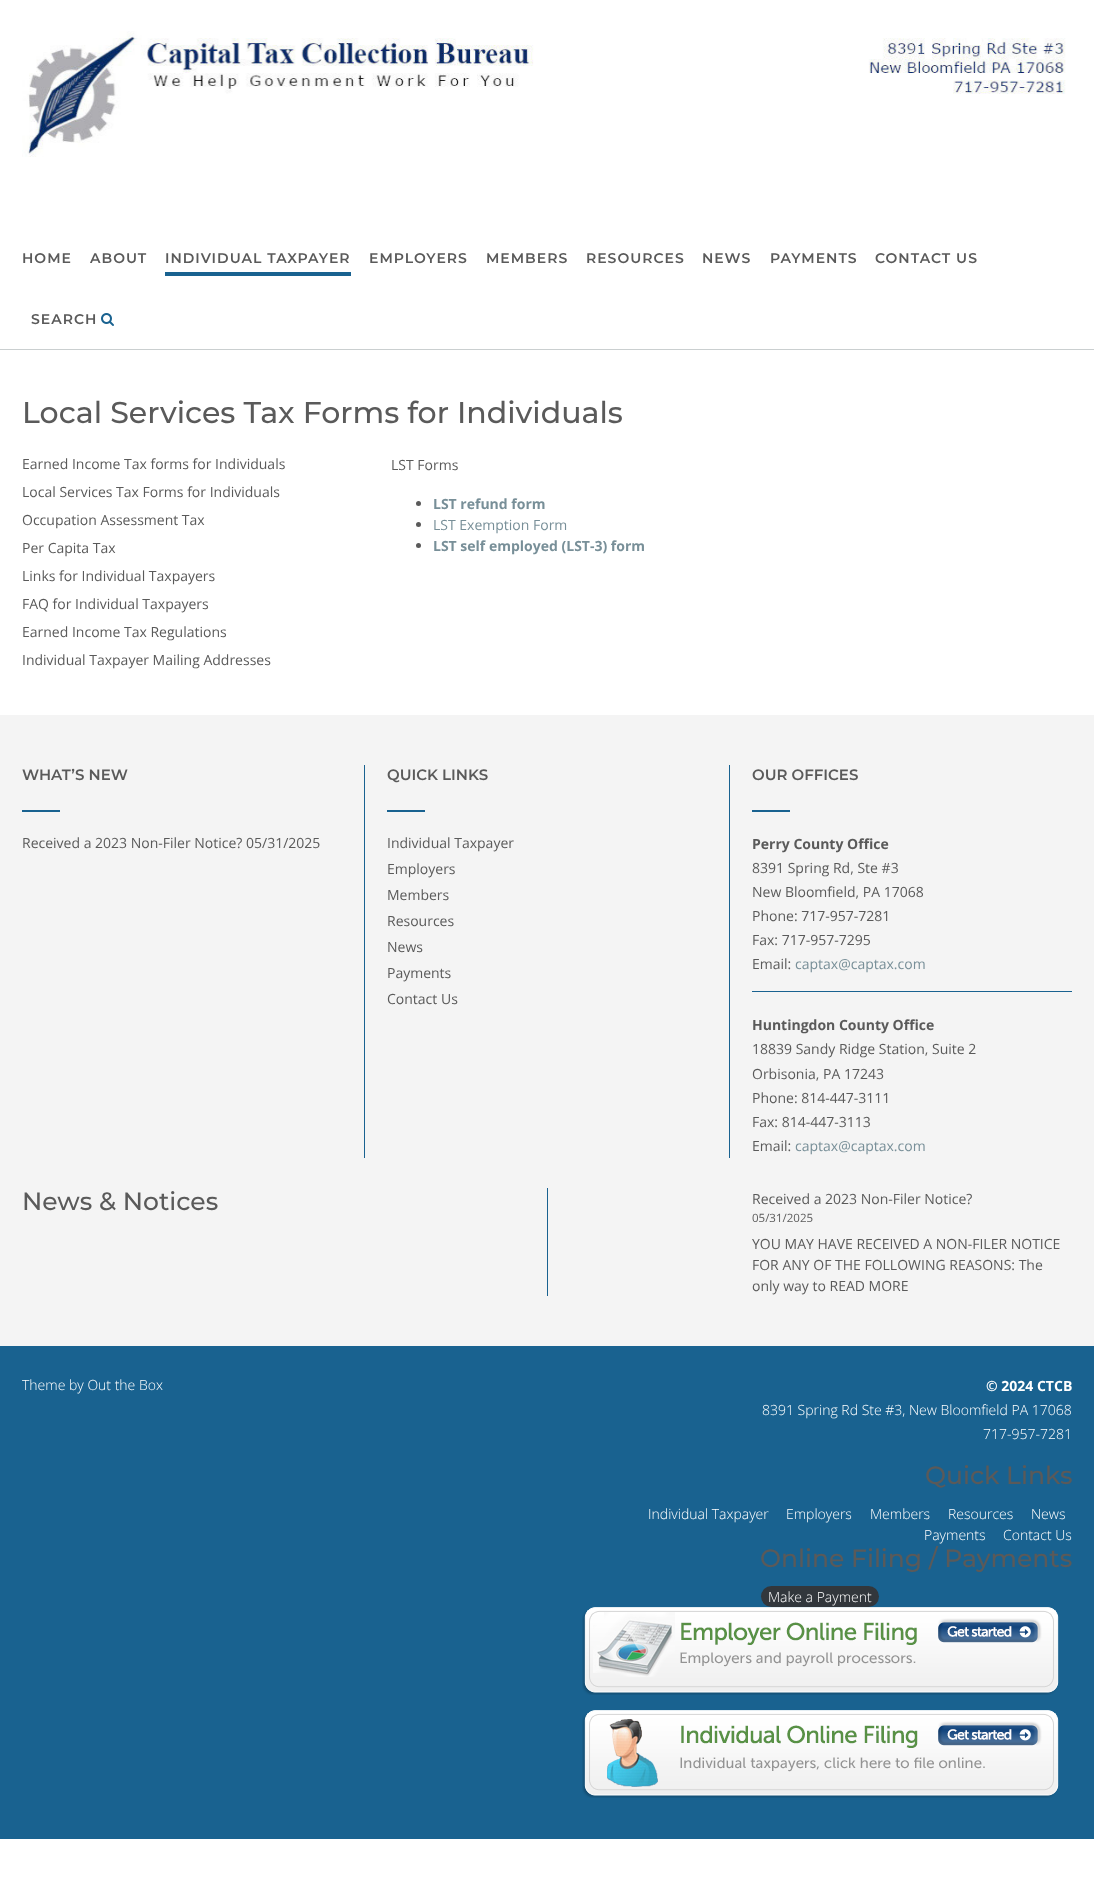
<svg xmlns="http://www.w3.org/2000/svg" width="1094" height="1878">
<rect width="100%" height="100%" fill="#fff"/>
<rect y="349" width="1094" height="1" fill="#cacfd0"/>
<image x="22" y="31" width="1044" height="126" href="media/1.png"/>
<text x="22" y="263" style="font-family:Montserrat;font-size:14px;font-weight:600;letter-spacing:1px;fill:#5a5a5a">HOME</text>
<text x="90" y="263" style="font-family:Montserrat;font-size:14px;font-weight:600;letter-spacing:1px;fill:#5a5a5a">ABOUT</text>
<text x="165" y="263" style="font-family:Montserrat;font-size:14px;font-weight:600;letter-spacing:1px;fill:#5a5a5a">INDIVIDUAL TAXPAYER</text>
<rect x="165" y="272" width="186" height="4" fill="#196290"/>
<text x="369" y="263" style="font-family:Montserrat;font-size:14px;font-weight:600;letter-spacing:1px;fill:#5a5a5a">EMPLOYERS</text>
<text x="486" y="263" style="font-family:Montserrat;font-size:14px;font-weight:600;letter-spacing:1px;fill:#5a5a5a">MEMBERS</text>
<text x="586" y="263" style="font-family:Montserrat;font-size:14px;font-weight:600;letter-spacing:1px;fill:#5a5a5a">RESOURCES</text>
<text x="702" y="263" style="font-family:Montserrat;font-size:14px;font-weight:600;letter-spacing:1px;fill:#5a5a5a">NEWS</text>
<text x="770" y="263" style="font-family:Montserrat;font-size:14px;font-weight:600;letter-spacing:1px;fill:#5a5a5a">PAYMENTS</text>
<text x="875" y="263" style="font-family:Montserrat;font-size:14px;font-weight:600;letter-spacing:1px;fill:#5a5a5a">CONTACT US</text>
<text x="31" y="324" style="font-family:Montserrat;font-size:14px;font-weight:600;letter-spacing:1px;fill:#5a5a5a">SEARCH</text>
<image x="101" y="313" width="13" height="13" href="media/2.png"/>
<text x="22" y="423" style="font-family:Montserrat;font-size:30px;font-weight:500;fill:#5a5a5a">Local Services Tax Forms for Individuals</text>
<text x="22" y="469" style="font-family:Open Sans;font-size:14px;fill:#5a5a5a">Earned Income Tax forms for Individuals</text>
<text x="22" y="497" style="font-family:Open Sans;font-size:14px;fill:#5a5a5a">Local Services Tax Forms for Individuals</text>
<text x="22" y="525" style="font-family:Open Sans;font-size:14px;fill:#5a5a5a">Occupation Assessment Tax</text>
<text x="22" y="553" style="font-family:Open Sans;font-size:14px;fill:#5a5a5a">Per Capita Tax</text>
<text x="22" y="581" style="font-family:Open Sans;font-size:14px;fill:#5a5a5a">Links for Individual Taxpayers</text>
<text x="22" y="609" style="font-family:Open Sans;font-size:14px;fill:#5a5a5a">FAQ for Individual Taxpayers</text>
<text x="22" y="637" style="font-family:Open Sans;font-size:14px;fill:#5a5a5a">Earned Income Tax Regulations</text>
<text x="22" y="665" style="font-family:Open Sans;font-size:14px;fill:#5a5a5a">Individual Taxpayer Mailing Addresses</text>
<text x="391" y="470" style="font-family:Open Sans;font-size:14px;fill:#5a5a5a">LST Forms</text>
<circle cx="418.5" cy="503.5" r="2.5" fill="#5a5a5a"/>
<text x="433" y="509" style="font-family:Open Sans;font-size:14px;font-weight:bold;fill:#788f98">LST refund form</text>
<circle cx="418.5" cy="524.5" r="2.5" fill="#5a5a5a"/>
<text x="433" y="530" style="font-family:Open Sans;font-size:14px;fill:#788f98">LST Exemption Form</text>
<circle cx="418.5" cy="545.5" r="2.5" fill="#5a5a5a"/>
<text x="433" y="551" style="font-family:Open Sans;font-size:14px;font-weight:bold;fill:#788f98">LST self employed (LST-3) form</text>
<rect y="715" width="1094" height="631" fill="#f4f4f4"/>
<text x="22" y="780" style="font-family:Montserrat;font-size:15px;font-weight:600;fill:#5a5a5a">WHAT’S NEW</text>
<rect x="22" y="810" width="38" height="2" fill="#196290"/>
<text x="22" y="848" style="font-family:Open Sans;font-size:14px;fill:#5a5a5a">Received a 2023 Non-Filer Notice? 05/31/2025</text>
<rect x="364" y="765" width="1" height="393" fill="#196290"/>
<text x="387" y="780" style="font-family:Montserrat;font-size:15px;font-weight:600;fill:#5a5a5a">QUICK LINKS</text>
<rect x="387" y="810" width="38" height="2" fill="#196290"/>
<text x="387" y="848" style="font-family:Open Sans;font-size:14px;fill:#5a5a5a">Individual Taxpayer</text>
<text x="387" y="874" style="font-family:Open Sans;font-size:14px;fill:#5a5a5a">Employers</text>
<text x="387" y="900" style="font-family:Open Sans;font-size:14px;fill:#5a5a5a">Members</text>
<text x="387" y="926" style="font-family:Open Sans;font-size:14px;fill:#5a5a5a">Resources</text>
<text x="387" y="952" style="font-family:Open Sans;font-size:14px;fill:#5a5a5a">News</text>
<text x="387" y="978" style="font-family:Open Sans;font-size:14px;fill:#5a5a5a">Payments</text>
<text x="387" y="1004" style="font-family:Open Sans;font-size:14px;fill:#5a5a5a">Contact Us</text>
<rect x="729" y="765" width="1" height="393" fill="#196290"/>
<text x="752" y="780" style="font-family:Montserrat;font-size:15px;font-weight:600;fill:#5a5a5a">OUR OFFICES</text>
<rect x="752" y="810" width="38" height="2" fill="#196290"/>
<text x="752" y="849" style="font-family:Open Sans;font-size:14px;font-weight:bold;fill:#5a5a5a">Perry County Office</text>
<text x="752" y="873" style="font-family:Open Sans;font-size:14px;fill:#5a5a5a">8391 Spring Rd, Ste #3</text>
<text x="752" y="897" style="font-family:Open Sans;font-size:14px;fill:#5a5a5a">New Bloomfield, PA 17068</text>
<text x="752" y="921" style="font-family:Open Sans;font-size:14px;fill:#5a5a5a">Phone: 717-957-7281</text>
<text x="752" y="945" style="font-family:Open Sans;font-size:14px;fill:#5a5a5a">Fax: 717-957-7295</text>
<text x="752" y="969" style="font-family:Open Sans;font-size:14px;fill:#5a5a5a">Email:</text>
<text x="795" y="969" style="font-family:Open Sans;font-size:14px;fill:#788f98">captax@captax.com</text>
<rect x="752" y="991" width="320" height="1" fill="#196290"/>
<text x="752" y="1030" style="font-family:Open Sans;font-size:14px;font-weight:bold;fill:#5a5a5a">Huntingdon County Office</text>
<text x="752" y="1054" style="font-family:Open Sans;font-size:14px;fill:#5a5a5a">18839 Sandy Ridge Station, Suite 2</text>
<text x="752" y="1079" style="font-family:Open Sans;font-size:14px;fill:#5a5a5a">Orbisonia, PA 17243</text>
<text x="752" y="1103" style="font-family:Open Sans;font-size:14px;fill:#5a5a5a">Phone: 814-447-3111</text>
<text x="752" y="1127" style="font-family:Open Sans;font-size:14px;fill:#5a5a5a">Fax: 814-447-3113</text>
<text x="752" y="1151" style="font-family:Open Sans;font-size:14px;fill:#5a5a5a">Email:</text>
<text x="795" y="1151" style="font-family:Open Sans;font-size:14px;fill:#788f98">captax@captax.com</text>
<text x="22" y="1210" style="font-family:Montserrat;font-size:25px;font-weight:500;fill:#5a5a5a">News &amp; Notices</text>
<rect x="547" y="1188" width="1" height="108" fill="#196290"/>
<text x="752" y="1204" style="font-family:Open Sans;font-size:14px;fill:#5a5a5a">Received a 2023 Non-Filer Notice?</text>
<text x="752" y="1222" style="font-family:Open Sans;font-size:11.5px;fill:#5a5a5a">05/31/2025</text>
<text x="752" y="1249" style="font-family:Open Sans;font-size:14px;fill:#5a5a5a">YOU MAY HAVE RECEIVED A NON-FILER NOTICE</text>
<text x="752" y="1270" style="font-family:Open Sans;font-size:14px;fill:#5a5a5a">FOR ANY OF THE FOLLOWING REASONS: The</text>
<text x="752" y="1291" style="font-family:Open Sans;font-size:14px;fill:#5a5a5a">only way to READ MORE</text>
<rect y="1346" width="1094" height="493" fill="#196290"/>
<text x="22" y="1390" style="font-family:Open Sans;font-size:14px;font-weight:300;fill:#fff">Theme by Out the Box</text>
<text x="986" y="1391" style="font-family:Open Sans;font-size:14px;font-weight:bold;fill:#fff">© 2024 CTCB</text>
<text x="762" y="1415" style="font-family:Open Sans;font-size:14px;font-weight:300;fill:#fff">8391 Spring Rd Ste #3, New Bloomfield PA 17068</text>
<text x="983" y="1439" style="font-family:Open Sans;font-size:14px;font-weight:300;fill:#fff">717-957-7281</text>
<text x="925" y="1484" style="font-family:Montserrat;font-size:25px;font-weight:500;fill:#5a5a5a">Quick Links</text>
<text x="648" y="1519" style="font-family:Open Sans;font-size:14px;font-weight:300;fill:#fff">Individual Taxpayer</text>
<text x="786" y="1519" style="font-family:Open Sans;font-size:14px;font-weight:300;fill:#fff">Employers</text>
<text x="870" y="1519" style="font-family:Open Sans;font-size:14px;font-weight:300;fill:#fff">Members</text>
<text x="948" y="1519" style="font-family:Open Sans;font-size:14px;font-weight:300;fill:#fff">Resources</text>
<text x="1031" y="1519" style="font-family:Open Sans;font-size:14px;font-weight:300;fill:#fff">News</text>
<text x="924" y="1540" style="font-family:Open Sans;font-size:14px;font-weight:300;fill:#fff">Payments</text>
<text x="1003" y="1540" style="font-family:Open Sans;font-size:14px;font-weight:300;fill:#fff">Contact Us</text>
<text x="760" y="1567" style="font-family:Montserrat;font-size:25px;font-weight:500;fill:#5a5a5a">Online Filing / Payments</text>
<rect x="761" y="1586" width="118" height="21" rx="10.5" fill="#32373c"/>
<text x="768" y="1602" style="font-family:Open Sans;font-size:14px;font-weight:300;fill:#fff">Make a Payment</text>
<image x="582" y="1607" width="477" height="88" href="media/3.png"/>
<image x="582" y="1710" width="477" height="88" href="media/4.png"/>
</svg>
